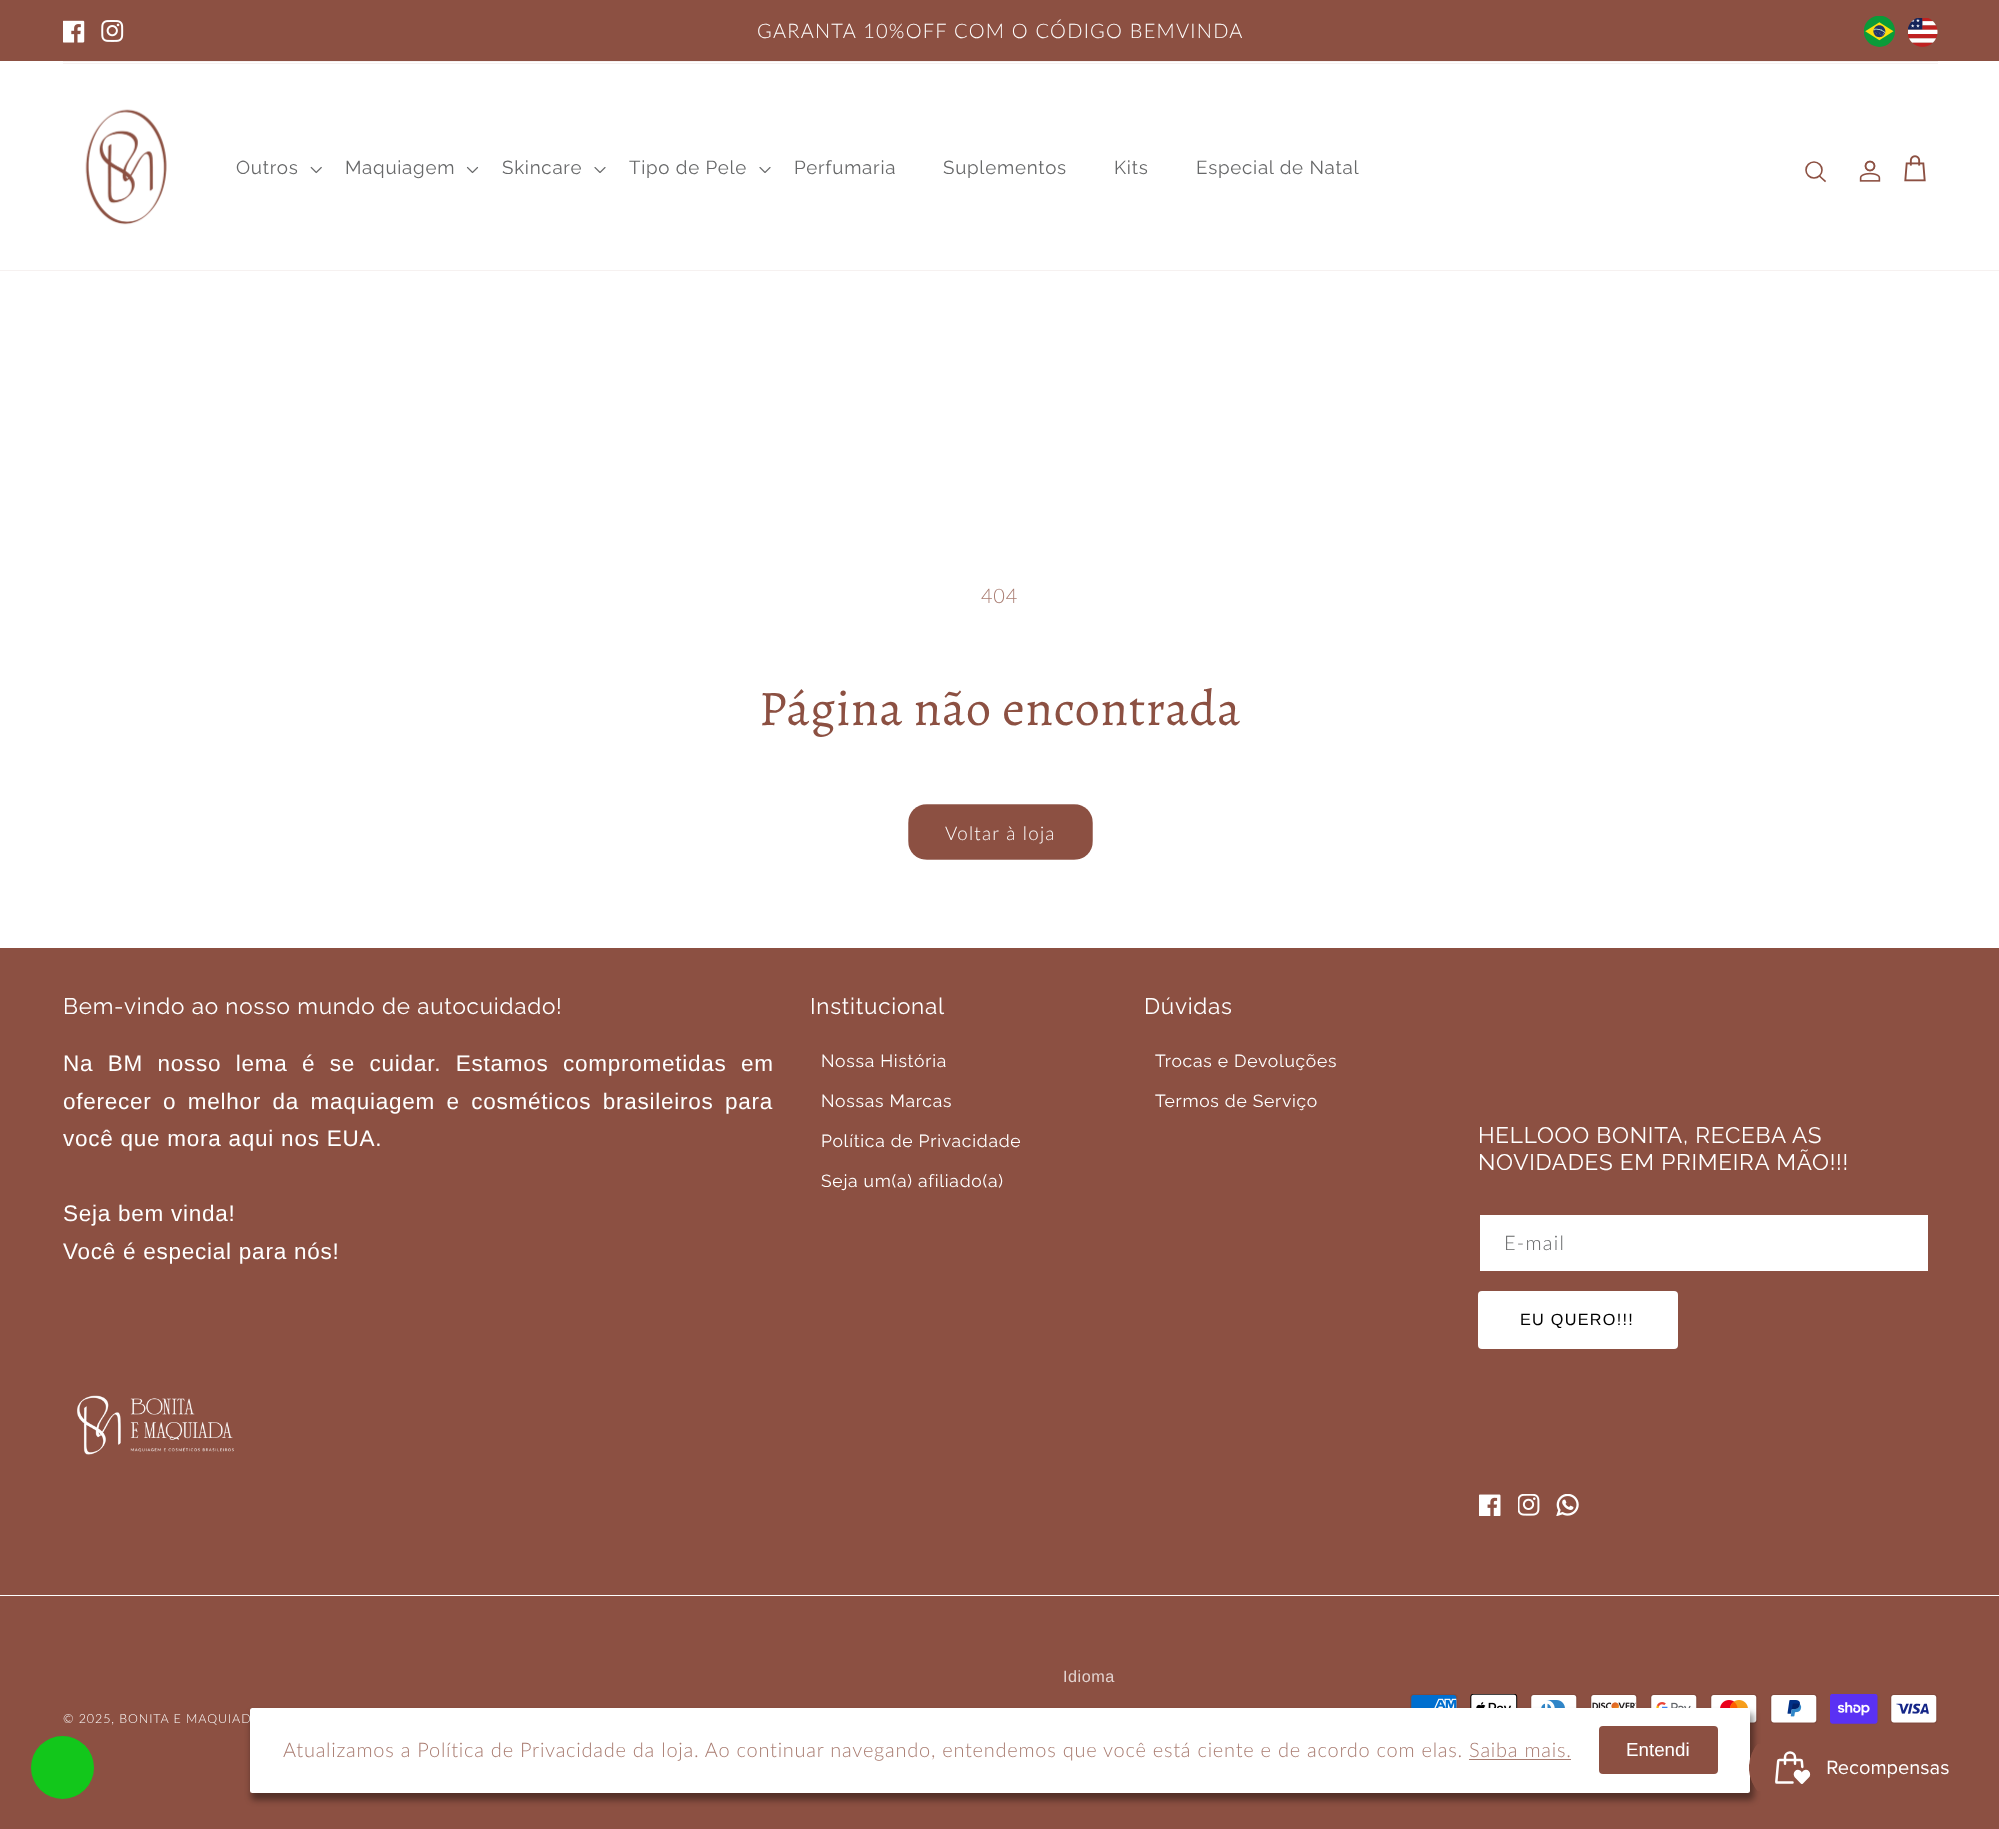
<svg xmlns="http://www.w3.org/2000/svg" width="1999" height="1829">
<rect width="100%" height="100%" fill="#fff"/>
<rect width="1999" height="61" fill="#8c5042"/>
<image x="63" y="20" width="22" height="23" href="media/1.png"/>
<image x="101" y="20" width="23" height="22" href="media/2.png"/>
<rect x="63" y="61" width="1875" height="1" fill="#f6f1f0"/>
<text x="757" y="38" style="font-family:Lato;font-size:20px;font-weight:300;letter-spacing:1.25px;fill:#fff">GARANTA 10%OFF COM O CÓDIGO BEMVINDA</text>
<image x="1864" y="16" width="31" height="31" href="media/3.png"/>
<image x="1908" y="18" width="30" height="29" href="media/4.png"/>
<rect x="63" y="63" width="1875" height="1" fill="#f6f1f0"/>
<rect y="270" width="1999" height="1" fill="#f6f1f0"/>
<image x="85" y="109" width="82" height="116" href="media/5.png"/>
<text x="236" y="174" style="font-family:Raleway;font-size:18.75px;font-weight:100;letter-spacing:0.75px;fill:#676869">Outros</text>
<image x="310" y="166" width="12" height="8" href="media/6.png"/>
<text x="345" y="174" style="font-family:Raleway;font-size:18.75px;font-weight:100;letter-spacing:0.75px;fill:#676869">Maquiagem</text>
<image x="466" y="166" width="13" height="8" href="media/7.png"/>
<text x="502" y="174" style="font-family:Raleway;font-size:18.75px;font-weight:100;letter-spacing:0.75px;fill:#676869">Skincare</text>
<image x="594" y="167" width="12" height="6" href="media/8.png"/>
<text x="629" y="174" style="font-family:Raleway;font-size:18.75px;font-weight:100;letter-spacing:0.75px;fill:#676869">Tipo de Pele</text>
<image x="759" y="167" width="12" height="6" href="media/8.png"/>
<text x="794" y="174" style="font-family:Raleway;font-size:18.75px;font-weight:100;letter-spacing:0.75px;fill:#676869">Perfumaria</text>
<text x="943" y="174" style="font-family:Raleway;font-size:18.75px;font-weight:100;letter-spacing:0.75px;fill:#676869">Suplementos</text>
<text x="1114" y="174" style="font-family:Raleway;font-size:18.75px;font-weight:100;letter-spacing:0.75px;fill:#676869">Kits</text>
<text x="1196" y="174" style="font-family:Raleway;font-size:18.75px;font-weight:100;letter-spacing:0.75px;fill:#676869">Especial de Natal</text>
<circle cx="1814" cy="170" r="8" fill="none" stroke="#8c5042" stroke-width="1.6"/>
<path d="M1820 176.5l5 4.5" fill="none" stroke="#8c5042" stroke-width="1.6" stroke-linecap="square"/>
<image x="1859" y="160" width="22" height="22" href="media/9.png"/>
<image x="1904" y="155" width="22" height="27" href="media/10.png"/>
<text x="981" y="603" style="font-family:Lato;font-size:20px;font-weight:300;letter-spacing:0.75px;fill:#a97c71">404</text>
<text x="759" y="725" style="font-family:Alegreya;font-size:50px;letter-spacing:0.75px;fill:#8c5042">Página não encontrada</text>
<rect x="908" y="804" width="185" height="56" rx="19" fill="#8c5042"/>
<rect x="908.2" y="804.2" width="184.6" height="55.6" rx="14.8" fill="none" stroke="#fff" stroke-width="0.4"/>
<text x="945" y="840" style="font-family:Lato;font-size:18.75px;font-weight:300;letter-spacing:1.25px;fill:#fff">Voltar à loja</text>
<rect y="948" width="1999" height="881" fill="#8c5042"/>
<text x="63" y="1014" style="font-family:Raleway;font-size:22.5px;font-weight:100;letter-spacing:0.75px;fill:#fff">Bem-vindo ao nosso mundo de autocuidado!</text>
<text x="63" y="1071" word-spacing="7.5" style="font-family:Liberation Sans;font-size:22.5px;letter-spacing:0.75px;fill:#fff">Na BM nosso lema é se cuidar. Estamos comprometidas em</text>
<text x="63" y="1109" word-spacing="4.5" style="font-family:Liberation Sans;font-size:22.5px;letter-spacing:0.75px;fill:#fff">oferecer o melhor da maquiagem e cosméticos brasileiros para</text>
<text x="63" y="1146" style="font-family:Liberation Sans;font-size:22.5px;letter-spacing:0.75px;fill:#fff">você que mora aqui nos EUA.</text>
<text x="63" y="1221" style="font-family:Liberation Sans;font-size:22.5px;letter-spacing:0.75px;fill:#fff">Seja bem vinda!</text>
<text x="63" y="1259" style="font-family:Liberation Sans;font-size:22.5px;letter-spacing:0.75px;fill:#fff">Você é especial para nós!</text>
<image x="77" y="1395" width="157" height="60" href="media/11.png"/>
<text x="810" y="1014" style="font-family:Raleway;font-size:22.5px;font-weight:100;letter-spacing:0.75px;fill:#fff">Institucional</text>
<text x="821" y="1067" style="font-family:Raleway;font-size:17.5px;font-weight:100;letter-spacing:0.75px;fill:#fff">Nossa História</text>
<text x="821" y="1107" style="font-family:Raleway;font-size:17.5px;font-weight:100;letter-spacing:0.75px;fill:#fff">Nossas Marcas</text>
<text x="821" y="1147" style="font-family:Raleway;font-size:17.5px;font-weight:100;letter-spacing:0.75px;fill:#fff">Política de Privacidade</text>
<text x="821" y="1187" style="font-family:Raleway;font-size:17.5px;font-weight:100;letter-spacing:0.75px;fill:#fff">Seja um(a) afiliado(a)</text>
<text x="1144" y="1014" style="font-family:Raleway;font-size:22.5px;font-weight:100;letter-spacing:0.75px;fill:#fff">Dúvidas</text>
<text x="1155" y="1067" style="font-family:Raleway;font-size:17.5px;font-weight:100;letter-spacing:0.75px;fill:#fff">Trocas e Devoluções</text>
<text x="1155" y="1107" style="font-family:Raleway;font-size:17.5px;font-weight:100;letter-spacing:0.75px;fill:#fff">Termos de Serviço</text>
<text x="1478" y="1143" style="font-family:Raleway;font-size:22.5px;font-weight:100;letter-spacing:0.75px;fill:#fff">HELLOOO BONITA, RECEBA AS</text>
<text x="1478" y="1170" style="font-family:Raleway;font-size:22.5px;font-weight:100;letter-spacing:0.75px;fill:#fff">NOVIDADES EM PRIMEIRA MÃO!!!</text>
<rect x="1480" y="1215" width="448" height="56" fill="#fff"/>
<text x="1504" y="1250" style="font-family:Lato;font-size:20px;font-weight:300;letter-spacing:1.25px;fill:#676869">E-mail</text>
<rect x="1478" y="1291" width="200" height="58" rx="4" fill="#fff"/>
<text x="1520" y="1325" style="font-family:Liberation Sans;font-size:16.25px;letter-spacing:1.25px;fill:#000">EU QUERO!!!</text>
<image x="1479" y="1494" width="22" height="22" href="media/12.png"/>
<image x="1518" y="1494" width="22" height="22" href="media/13.png"/>
<image x="1556" y="1494" width="23" height="22" href="media/14.png"/>
<rect y="1595" width="1999" height="1" fill="#fff"/>
<text x="1063" y="1682" style="font-family:Liberation Sans;font-size:16.25px;letter-spacing:0.5px;fill:#e2d3d0">Idioma</text>
<image x="1410" y="1694" width="48" height="14" href="media/15.png"/>
<image x="1470" y="1694" width="48" height="14" href="media/16.png"/>
<image x="1530" y="1694" width="48" height="14" href="media/17.png"/>
<image x="1590" y="1694" width="48" height="14" href="media/18.png"/>
<image x="1650" y="1694" width="48" height="14" href="media/19.png"/>
<image x="1710" y="1694" width="48" height="30" href="media/20.png"/>
<image x="1770" y="1694" width="48" height="30" href="media/21.png"/>
<image x="1830" y="1694" width="48" height="30" href="media/22.png"/>
<image x="1890" y="1694" width="48" height="30" href="media/23.png"/>
<text x="63" y="1723" style="font-family:Lato;font-size:12.5px;font-weight:300;letter-spacing:0.9px;fill:#fff">© 2025, BONITA E MAQUIAD</text>
<circle cx="62.5" cy="1767.5" r="31.5" fill="#12c71b"/>
<rect x="251" y="1713" width="1503" height="87" rx="4" fill="#00000066" filter="blur(3px)"/>
<rect x="250" y="1708" width="1500" height="85" rx="2.5" fill="#fff"/>
<text x="283" y="1757" style="font-family:Lato;font-size:20px;font-weight:300;letter-spacing:0.75px;fill:#a97c71">Atualizamos a Política de Privacidade da loja. Ao continuar navegando, entendemos que você está ciente e de acordo com elas. Saiba mais.</text>
<rect x="1469" y="1759" width="102" height="1" fill="#a97c71"/>
<rect x="1599" y="1726" width="119" height="48" rx="4" fill="#8c5042"/>
<text x="1626" y="1756" style="font-family:Liberation Sans;font-size:18.75px;fill:#fff">Entendi</text>
<image x="1749" y="1744" width="200" height="47" href="media/24.png"/>
</svg>
